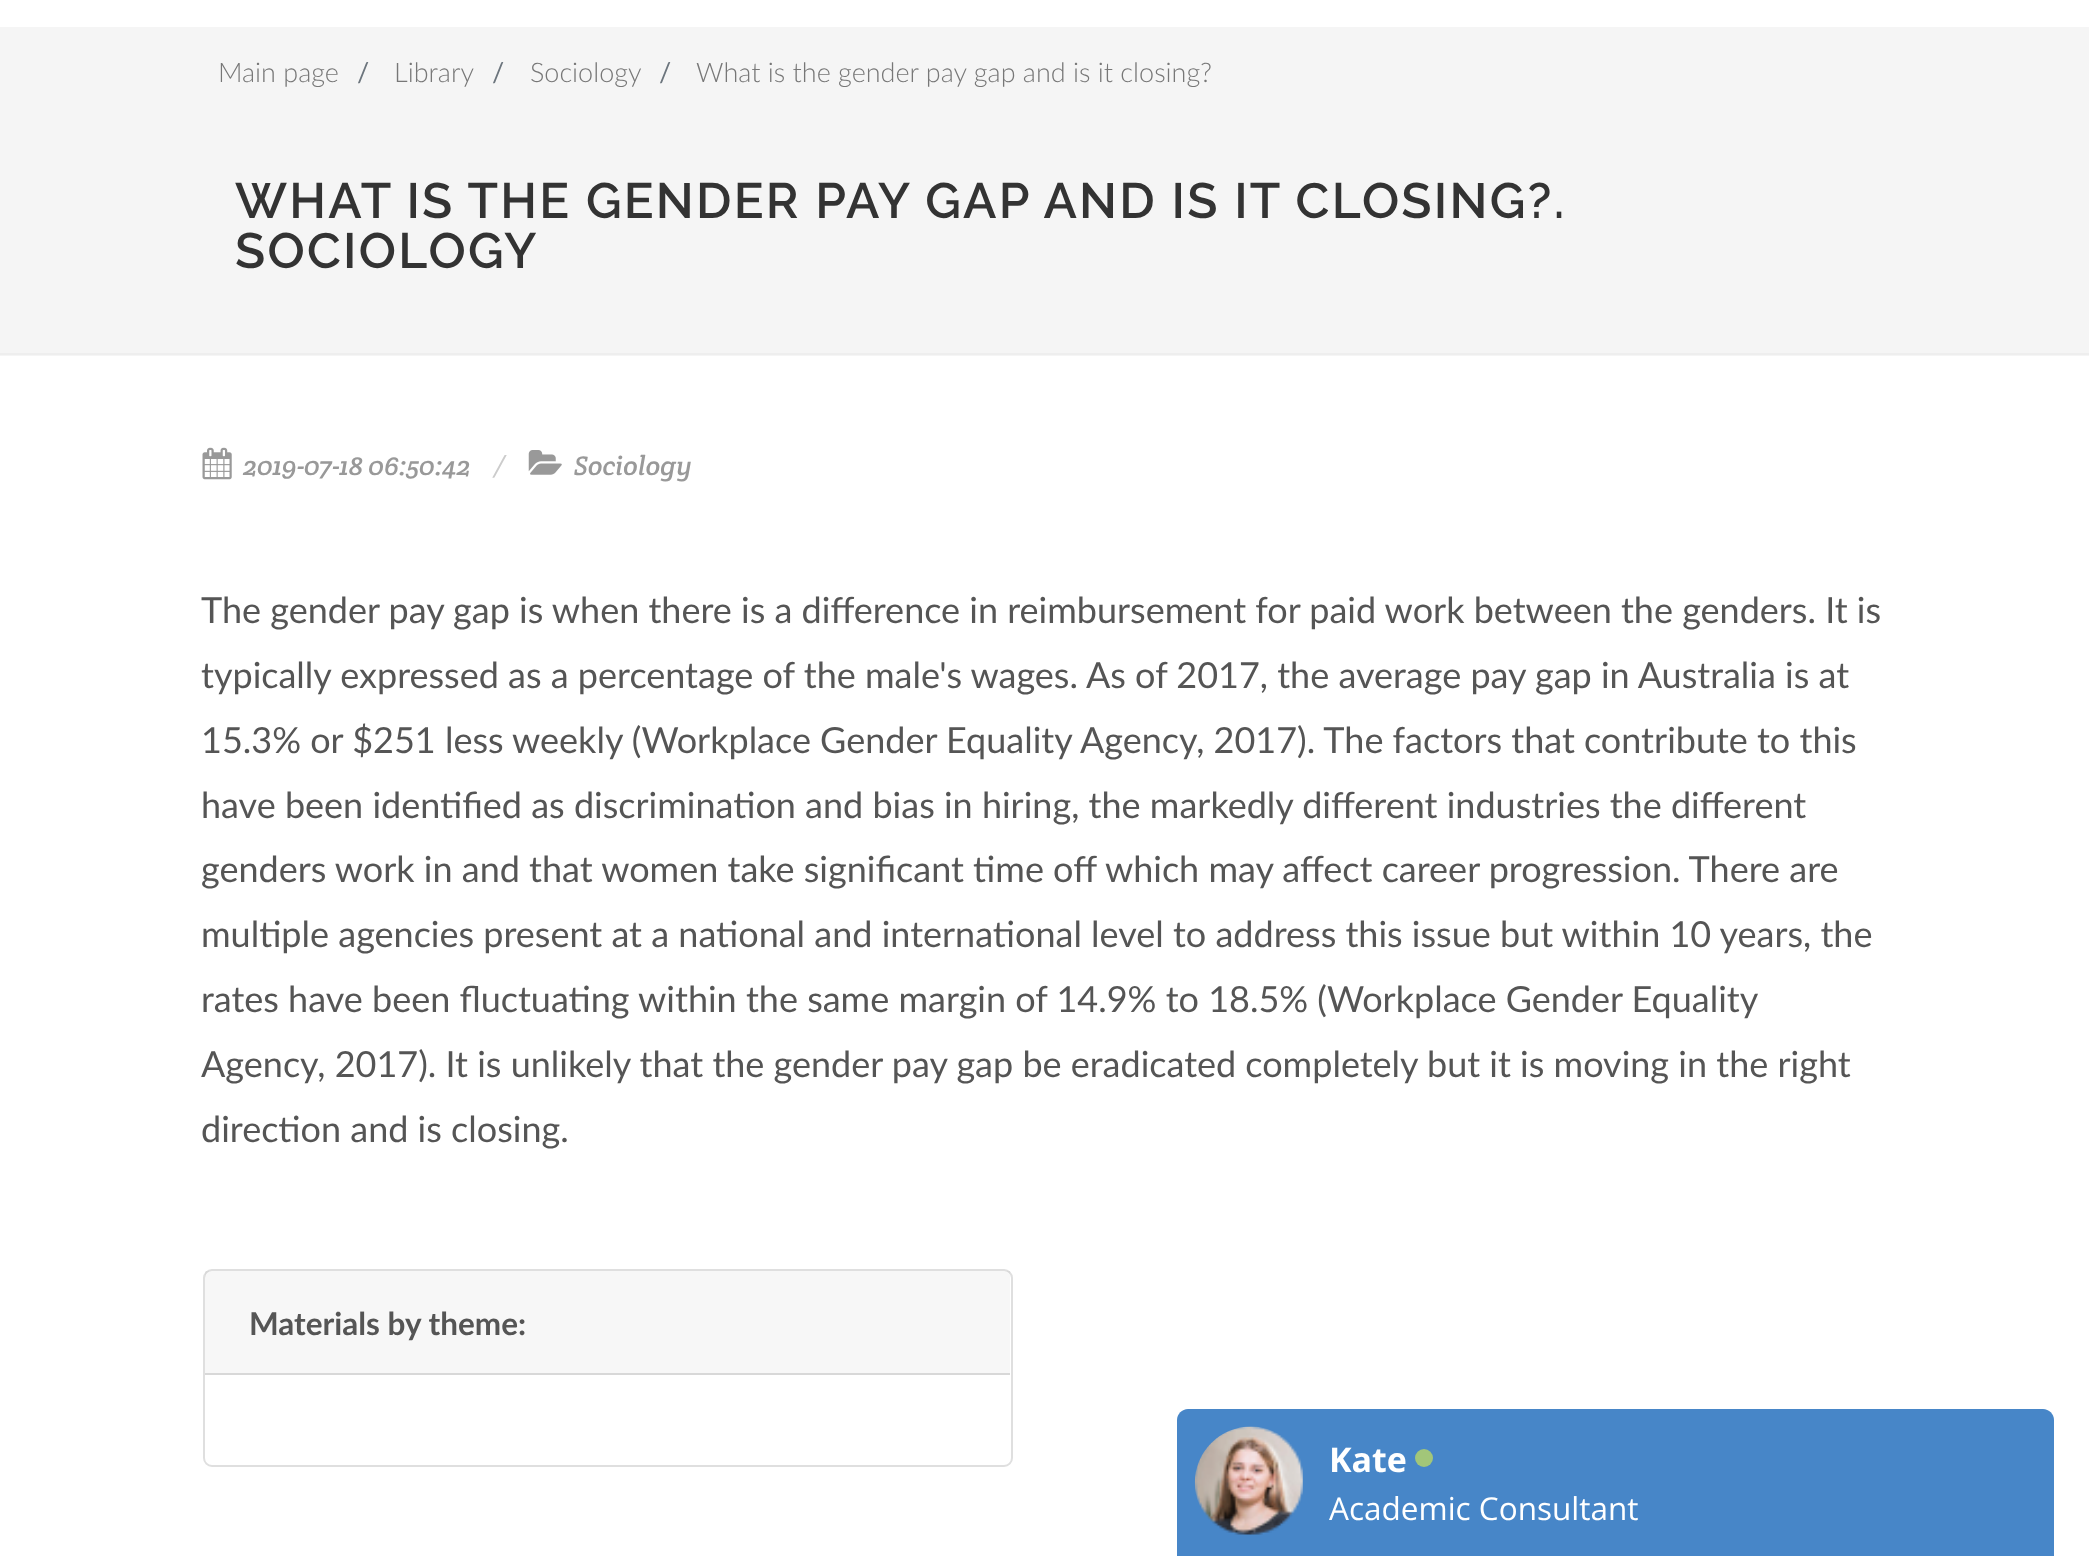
<svg xmlns="http://www.w3.org/2000/svg" width="2089" height="1556">
<rect width="100%" height="100%" fill="#fff"/>
<rect y="27" width="2089" height="329" fill="#f5f5f5"/>
<rect y="353" width="2089" height="2" fill="#eee"/>
<text x="218" y="82" style="font-family:Lato;font-size:27px;font-weight:300;fill:#777">Main page</text>
<text x="357" y="82" style="font-family:Lato;font-size:27px;fill:#6c757d">/</text>
<text x="394" y="82" style="font-family:Lato;font-size:27px;font-weight:300;fill:#777">Library</text>
<text x="492" y="82" style="font-family:Lato;font-size:27px;fill:#6c757d">/</text>
<text x="530" y="82" style="font-family:Lato;font-size:27px;font-weight:300;fill:#777">Sociology</text>
<text x="659" y="82" style="font-family:Lato;font-size:27px;fill:#6c757d">/</text>
<text x="696" y="82" style="font-family:Lato;font-size:27px;font-weight:300;fill:#777">What is the gender pay gap and is it closing?</text>
<text x="235" y="218" style="font-family:Raleway;font-size:49.5px;font-weight:600;letter-spacing:2.25px;fill:#333">WHAT IS THE GENDER PAY GAP AND IS IT CLOSING?.</text>
<text x="235" y="268" style="font-family:Raleway;font-size:49.5px;font-weight:600;letter-spacing:2.25px;fill:#333">SOCIOLOGY</text>
<image x="202" y="447" width="30" height="33" href="media/1.png"/>
<text x="243" y="475" style="font-family:Crete Round;font-size:27px;font-style:italic;fill:#999">2019-07-18 06:50:42</text>
<text x="493" y="475" style="font-family:Crete Round;font-size:27px;font-style:italic;fill:#ccc">/</text>
<image x="528" y="450" width="34" height="25" href="media/2.png"/>
<text x="574" y="475" style="font-family:Crete Round;font-size:27px;font-style:italic;fill:#999">Sociology</text>
<text x="201" y="623" style="font-family:Lato;font-size:36px;fill:#555">The gender pay gap is when there is a difference in reimbursement for paid work between the genders. It is</text>
<text x="201" y="688" style="font-family:Lato;font-size:36px;fill:#555">typically expressed as a percentage of the male's wages. As of 2017, the average pay gap in Australia is at</text>
<text x="201" y="753" style="font-family:Lato;font-size:36px;fill:#555">15.3% or $251 less weekly (Workplace Gender Equality Agency, 2017). The factors that contribute to this</text>
<text x="201" y="818" style="font-family:Lato;font-size:36px;fill:#555">have been identified as discrimination and bias in hiring, the markedly different industries the different</text>
<text x="201" y="882" style="font-family:Lato;font-size:36px;fill:#555">genders work in and that women take significant time off which may affect career progression. There are</text>
<text x="201" y="947" style="font-family:Lato;font-size:36px;fill:#555">multiple agencies present at a national and international level to address this issue but within 10 years, the</text>
<text x="201" y="1012" style="font-family:Lato;font-size:36px;fill:#555">rates have been fluctuating within the same margin of 14.9% to 18.5% (Workplace Gender Equality</text>
<text x="201" y="1077" style="font-family:Lato;font-size:36px;fill:#555">Agency, 2017). It is unlikely that the gender pay gap be eradicated completely but it is moving in the right</text>
<text x="201" y="1142" style="font-family:Lato;font-size:36px;fill:#555">direction and is closing.</text>
<rect x="204" y="1270" width="808" height="196" rx="8" fill="none" stroke="#dfdfdf" stroke-width="2"/>
<rect x="205" y="1271" width="805" height="102" fill="#00000008"/>
<rect x="205" y="1373" width="805" height="2" fill="#d8d8d8"/>
<text x="249" y="1335" style="font-family:Lato;font-size:31.5px;font-weight:bold;fill:#555">Materials by theme:</text>
<path d="M1188 1409h855c6 0 11 5 11 11v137h-877v-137c0-6 5-11 11-11z" fill="#4786c8"/>
<image x="1194" y="1426" width="109" height="109" href="media/3.png"/>
<text x="1329" y="1472" style="font-family:Open Sans;font-size:34px;font-weight:bold;fill:#fff">Kate</text>
<circle cx="1424" cy="1458" r="9" fill="#a2c679"/>
<text x="1329" y="1520" style="font-family:Open Sans;font-size:31.5px;fill:#fff">Academic Consultant</text>
</svg>
